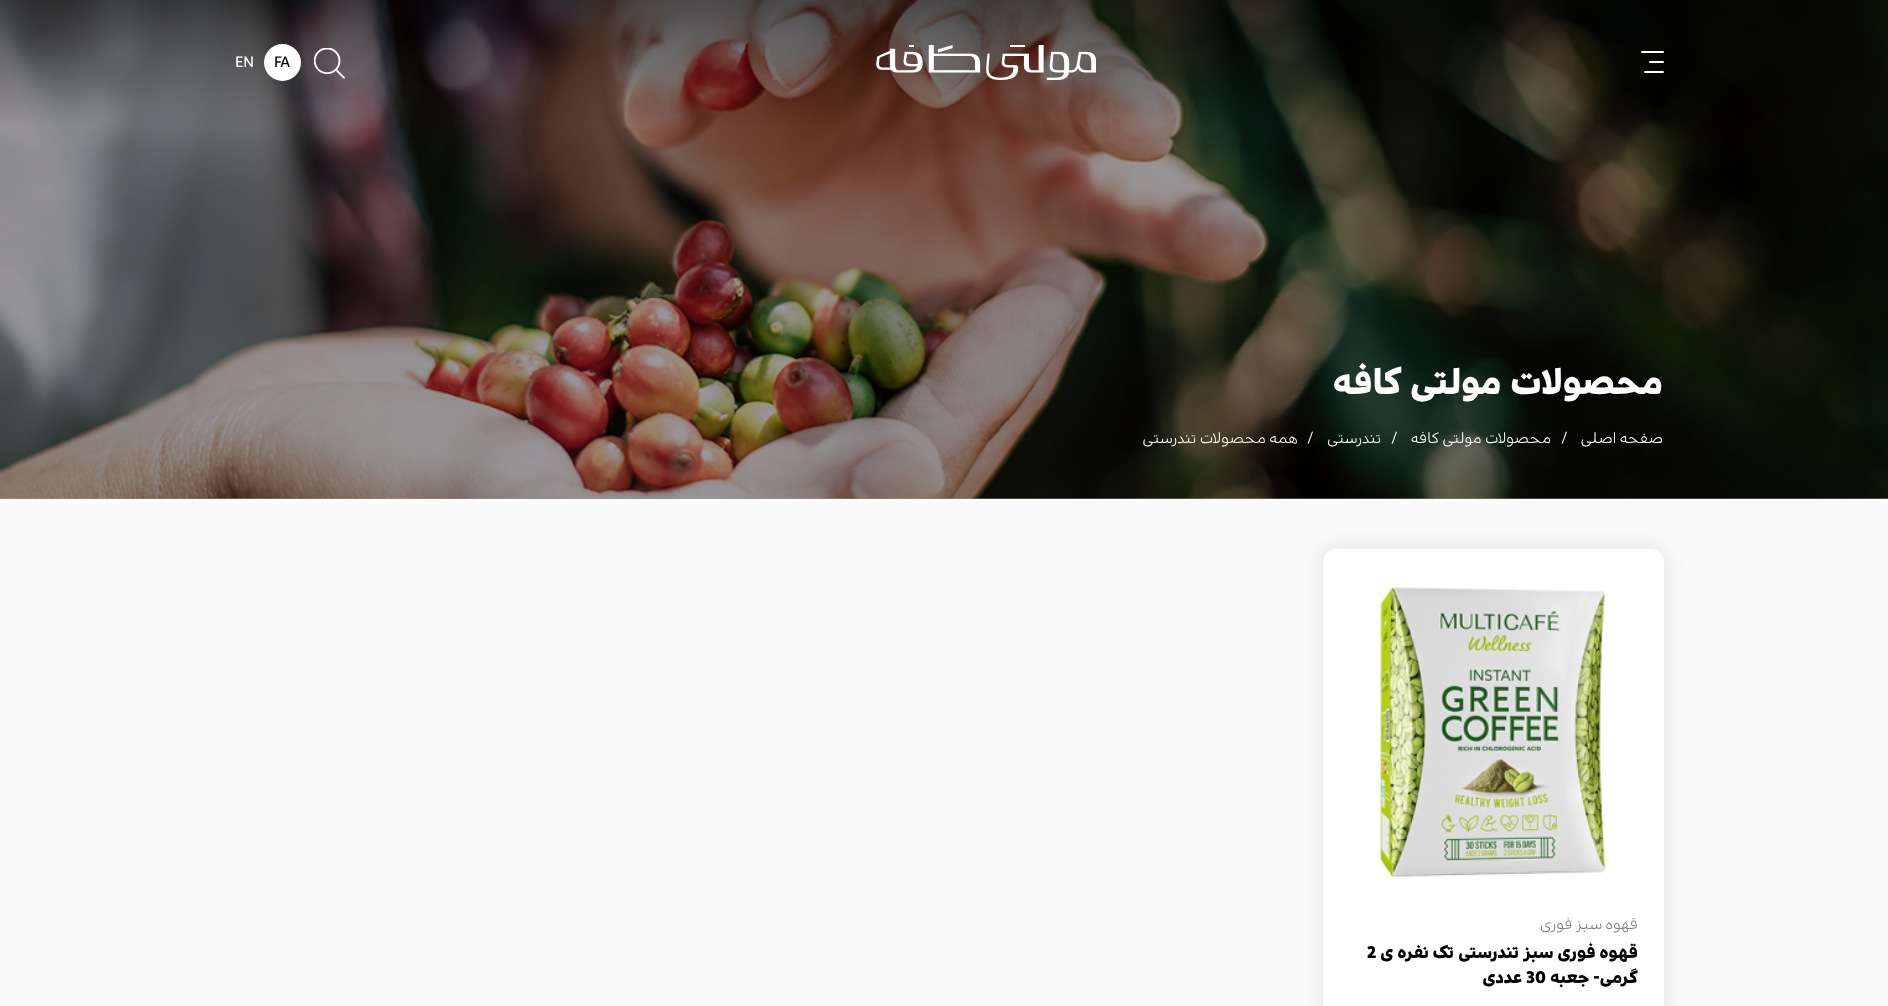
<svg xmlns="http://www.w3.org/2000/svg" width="1888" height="1006">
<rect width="100%" height="100%" fill="#999"/>
<image x="0" y="0" width="1888" height="499" href="media/3.png"/>
<rect x="1641" y="51" width="23" height="2" rx="1" fill="#fff"/>
<rect x="1649" y="61" width="15" height="2" rx="1" fill="#fff"/>
<rect x="1644" y="71" width="20" height="2" rx="1" fill="#fff"/>
<image x="876" y="45" width="220" height="35" href="media/1.png"/>
<image x="314" y="48" width="31" height="31" href="media/2.png"/>
<circle cx="282.5" cy="62.5" r="18.5" fill="#fff"/>
<text x="274" y="67" style="font-family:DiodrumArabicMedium;font-size:15px;font-weight:500;fill:#000">FA</text>
<text x="235" y="67" style="font-family:DiodrumArabicMedium;font-size:15px;font-weight:500;fill:#fff">EN</text>
<text x="1663" y="394" style="font-family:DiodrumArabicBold;font-size:36.25px;font-weight:bold;direction:rtl;fill:#fff">محصولات مولتی کافه</text>
<text x="1663" y="443" style="font-family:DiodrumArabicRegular;font-size:15px;direction:rtl;fill:#fff">صفحه اصلی</text>
<text x="1561" y="443" style="font-family:DiodrumArabicRegular;font-size:15px;fill:#fff">/</text>
<text x="1551" y="443" style="font-family:DiodrumArabicRegular;font-size:15px;direction:rtl;fill:#fff">محصولات مولتی کافه</text>
<text x="1391" y="443" style="font-family:DiodrumArabicRegular;font-size:15px;fill:#fff">/</text>
<text x="1381" y="443" style="font-family:DiodrumArabicRegular;font-size:15px;direction:rtl;fill:#fff">تندرستی</text>
<text x="1307" y="443" style="font-family:DiodrumArabicRegular;font-size:15px;fill:#fff">/</text>
<text x="1298" y="443" style="font-family:DiodrumArabicRegular;font-size:15px;direction:rtl;fill:#fff">همه محصولات تندرستی</text>
<rect y="499" width="1888" height="507" fill="#fafafa"/>
<rect x="1323" y="549" width="341" height="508" rx="13" fill="#0000001a" filter="blur(12.5px)"/>
<rect x="1323" y="549" width="341" height="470" rx="13" fill="#fff"/>
<image x="1379" y="587" width="227" height="290" href="media/4.png"/>
<text x="1638" y="929" style="font-family:DiodrumArabicRegular;font-size:15px;direction:rtl;fill:#808080">قهوه سبز فوری</text>
<text x="1638" y="958" style="font-family:DiodrumArabicBold;font-size:17.5px;font-weight:bold;direction:rtl;fill:#000">قهوه فوری سبز تندرستی تک نفره ی</text>
<text x="1367" y="958" style="font-family:DiodrumArabicBold;font-size:17.5px;font-weight:bold;fill:#000">2</text>
<text x="1638" y="983" style="font-family:DiodrumArabicBold;font-size:17.5px;font-weight:bold;direction:rtl;fill:#000">گرمی- جعبه</text>
<text x="1526" y="983" style="font-family:DiodrumArabicBold;font-size:17.5px;font-weight:bold;fill:#000">30</text>
<text x="1522" y="983" style="font-family:DiodrumArabicBold;font-size:17.5px;font-weight:bold;direction:rtl;fill:#000">عددی</text>
</svg>
